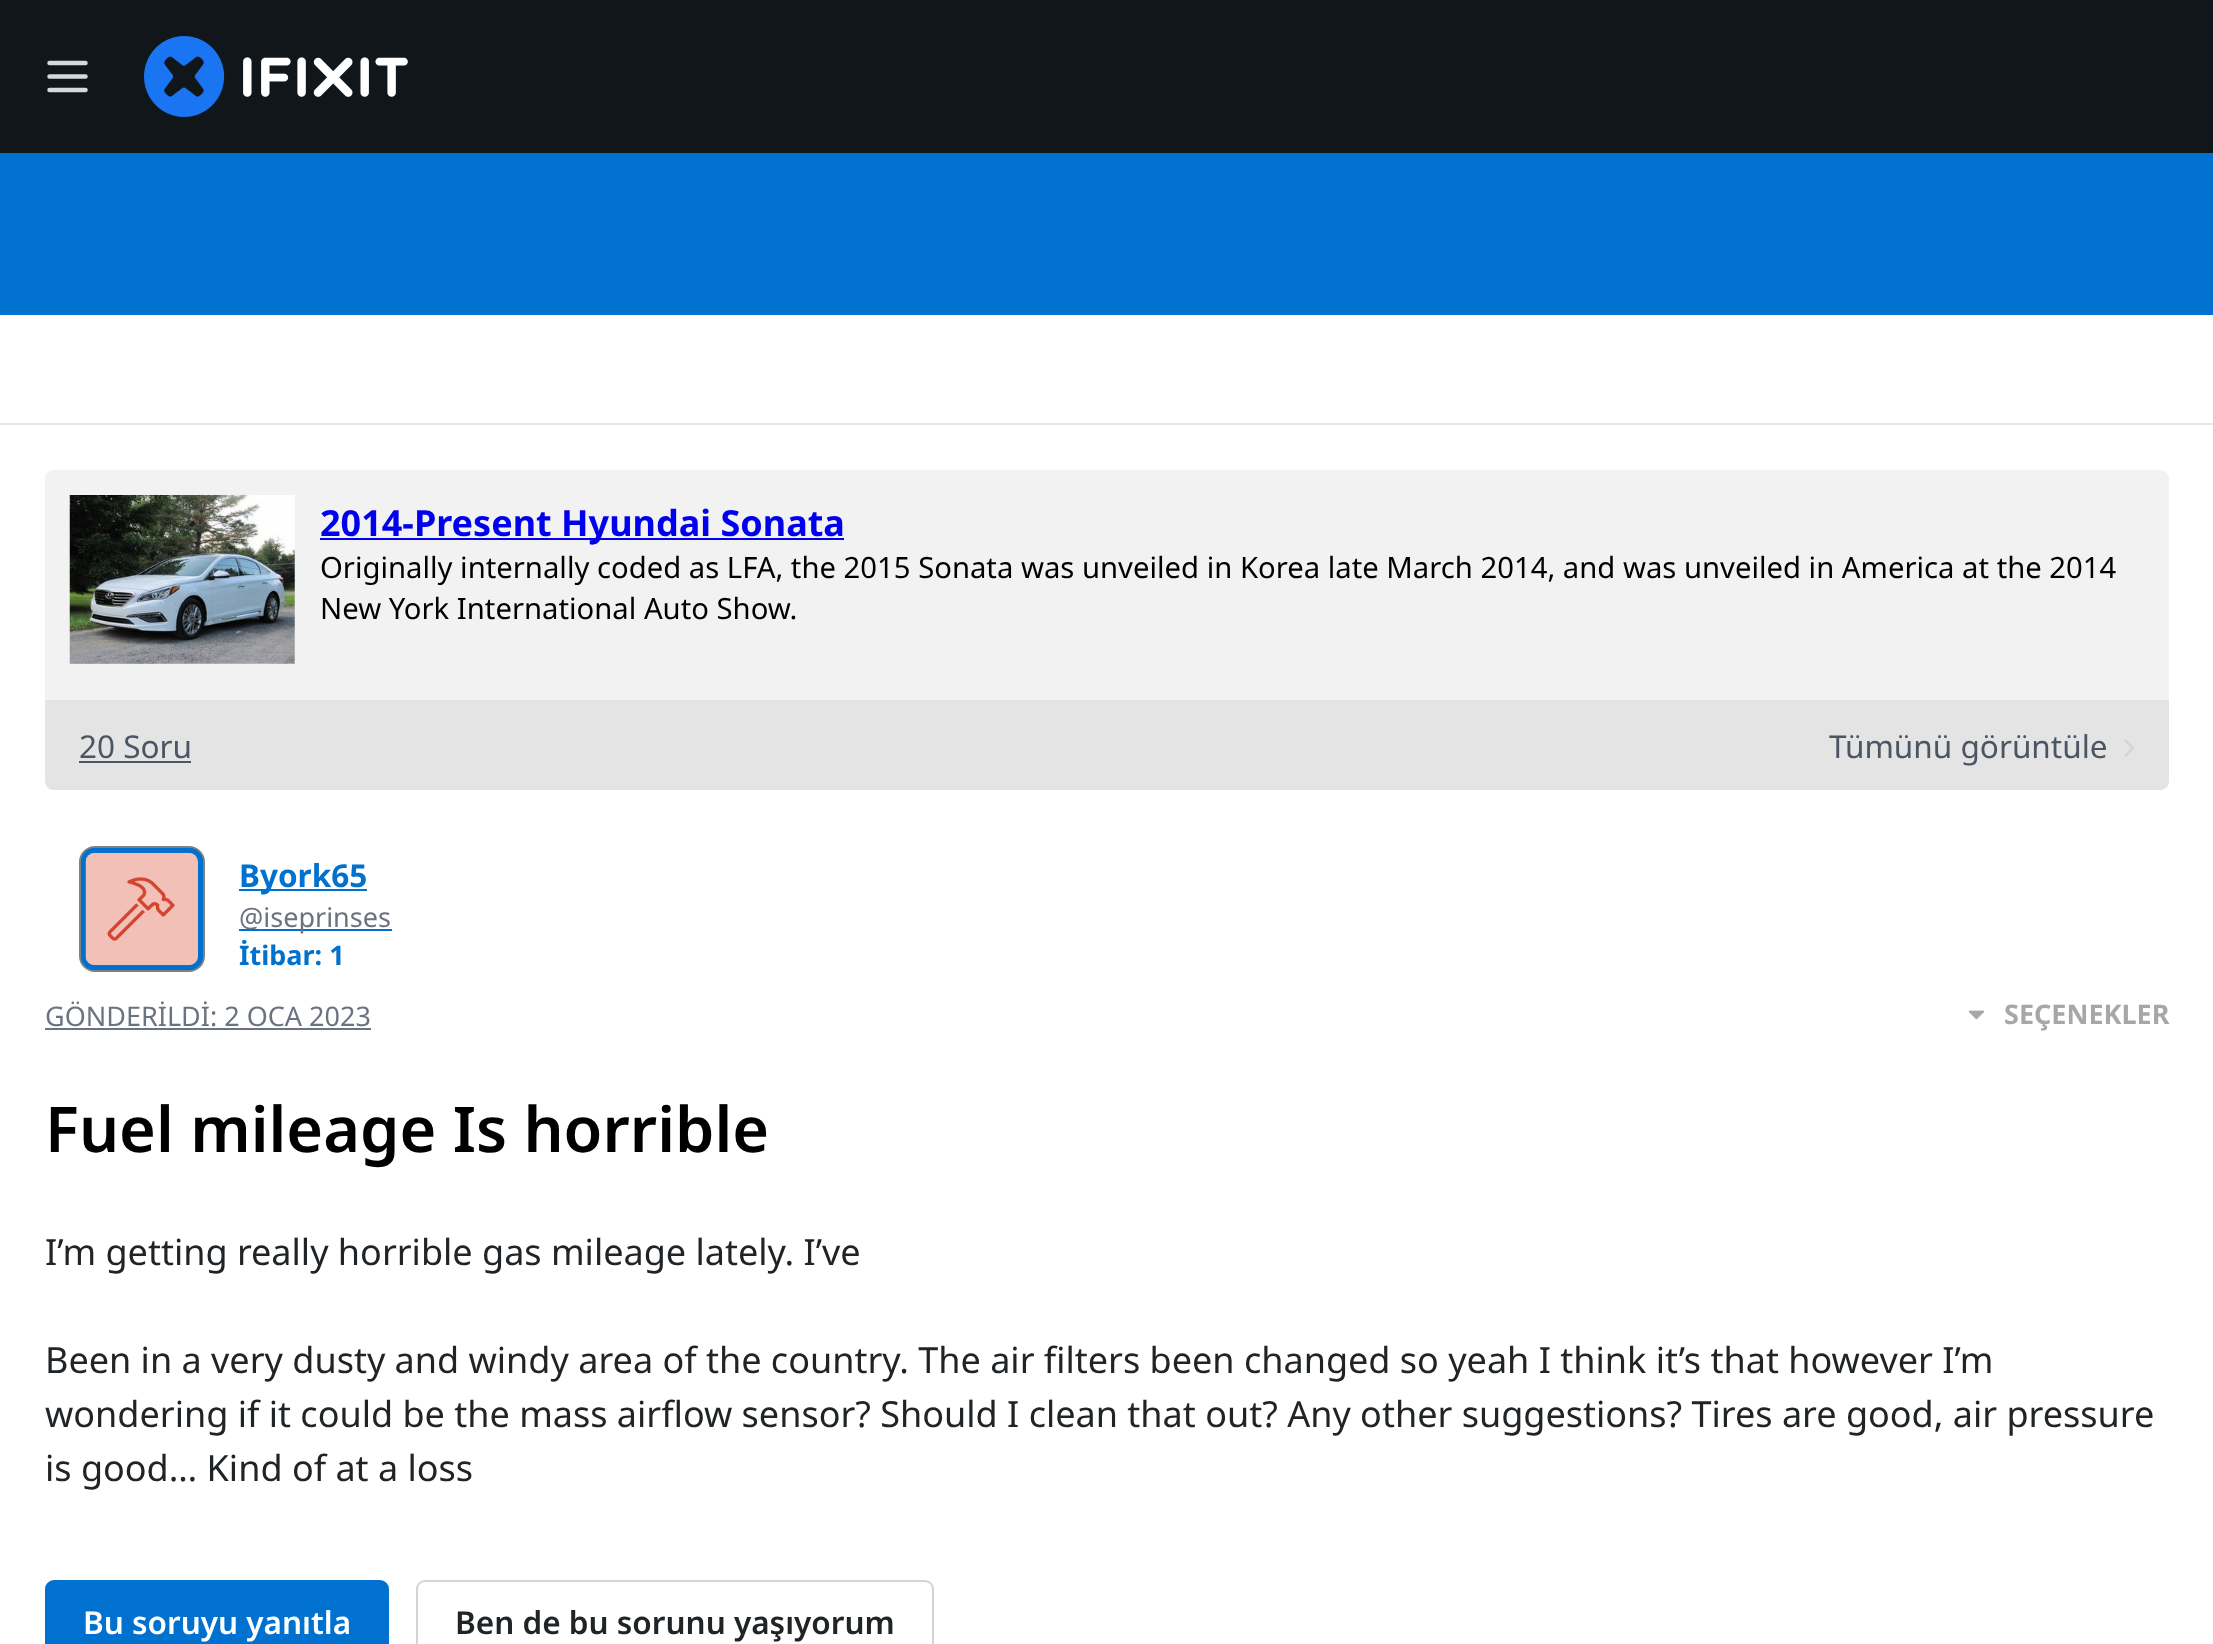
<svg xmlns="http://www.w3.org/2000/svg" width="2213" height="1644">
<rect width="100%" height="100%" fill="#fff"/>
<rect width="2213" height="153" fill="#11161a"/>
<path d="M49.5 76.5h36m-36-13.5h36m-36 27h36" fill="none" stroke="#d2dadf" stroke-width="4.5" stroke-linecap="round" stroke-linejoin="round"/>
<image x="144" y="36" width="264" height="81" href="media/1.png"/>
<rect y="153" width="2213" height="162" fill="#0071ce"/>
<rect y="423" width="2213" height="2" fill="#e5e7eb"/>
<rect x="45" y="470" width="2124" height="320" rx="9" fill="#f2f2f2"/>
<image x="69" y="495" width="226" height="169" href="media/2.png"/>
<rect x="320" y="538" width="524" height="2" fill="#00e"/>
<text x="320" y="536" style="font-family:Noto Sans;font-size:36px;font-weight:bold;fill:#00e">2014-Present Hyundai Sonata</text>
<text x="320" y="578" style="font-family:Noto Sans;font-size:29.25px;fill:#000">Originally internally coded as LFA, the 2015 Sonata was unveiled in Korea late March 2014, and was unveiled in America at the 2014</text>
<text x="320" y="619" style="font-family:Noto Sans;font-size:29.25px;fill:#000">New York International Auto Show.</text>
<path d="M45 700h2124v81c0 5-4 9-9 9h-2106c-5 0-9-4-9-9z" fill="#e4e4e4"/>
<text x="79" y="758" style="font-family:Noto Sans;font-size:31.5px;fill:#4b5563">20 Soru</text>
<rect x="79" y="761" width="112" height="2" fill="#4b5563"/>
<text x="1829" y="758" style="font-family:Noto Sans;font-size:31.5px;fill:#4b5563">Tümünü görüntüle</text>
<image x="2124" y="739" width="11" height="18" href="media/3.png"/>
<rect x="80" y="847" width="124" height="124" rx="15" fill="none" stroke="#808080" stroke-width="2"/>
<rect x="81" y="848" width="122" height="122" rx="14" fill="#00000080"/>
<path d="M95 848c-8 0-14 6-14 14v94c0 8 6 14 14 14h94c8 0 14-6 14-14v-94c0-8-6-14-14-14zm0 1c-7 0-13 6-13 13v94c0 7 6 13 13 13h94c7 0 13-6 13-13v-94c0-7-6-13-13-13z" fill="#0071ce" fill-rule="evenodd"/>
<rect x="83.5" y="850.5" width="117" height="117" rx="11.5" fill="none" stroke="#0071ce" stroke-width="5"/>
<image x="85" y="852" width="113" height="114" href="media/4.png"/>
<rect x="239" y="889" width="128" height="2" fill="#0071ce"/>
<text x="239" y="887" style="font-family:Noto Sans;font-size:31.5px;font-weight:bold;fill:#0071ce">Byork65</text>
<rect x="239" y="929" width="153" height="2" fill="#0071ce"/>
<text x="239" y="927" style="font-family:Noto Sans;font-size:27px;fill:#6b7280">@iseprinses</text>
<text x="239" y="965" style="font-family:Noto Sans;font-size:27px;font-weight:bold;fill:#0071ce">İtibar: 1</text>
<text x="45" y="1026" style="font-family:Noto Sans;font-size:27px;fill:#6b7280">GÖNDERİLDİ: 2 OCA 2023</text>
<rect x="45" y="1028" width="326" height="2" fill="#6b7280"/>
<image x="1968" y="1010" width="17" height="10" href="media/5.png"/>
<text x="2004" y="1024" style="font-family:Noto Sans;font-size:27px;font-weight:bold;fill:#a6a7a8">SEÇENEKLER</text>
<text x="45" y="1152" style="font-family:Noto Sans;font-size:63px;font-weight:600;fill:#000">Fuel mileage Is horrible</text>
<text x="45" y="1265" style="font-family:Noto Sans;font-size:36px;fill:#212426">I’m getting really horrible gas mileage lately. I’ve</text>
<text x="45" y="1373" style="font-family:Noto Sans;font-size:36px;fill:#212426">Been in a very dusty and windy area of the country. The air filters been changed so yeah I think it’s that however I’m</text>
<text x="45" y="1427" style="font-family:Noto Sans;font-size:36px;fill:#212426">wondering if it could be the mass airflow sensor? Should I clean that out? Any other suggestions? Tires are good, air pressure</text>
<text x="45" y="1481" style="font-family:Noto Sans;font-size:36px;fill:#212426">is good… Kind of at a loss</text>
<rect x="46" y="1581" width="342" height="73" rx="8" fill="#0071ce" stroke="#0071ce" stroke-width="2"/>
<text x="83" y="1634" style="font-family:Noto Sans;font-size:31.5px;font-weight:600;fill:#fff">Bu soruyu yanıtla</text>
<rect x="417" y="1581" width="516" height="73" rx="8" fill="none" stroke="#d1d5db" stroke-width="2"/>
<text x="455" y="1634" style="font-family:Noto Sans;font-size:31.5px;font-weight:600;fill:#212426">Ben de bu sorunu yaşıyorum</text>
</svg>
